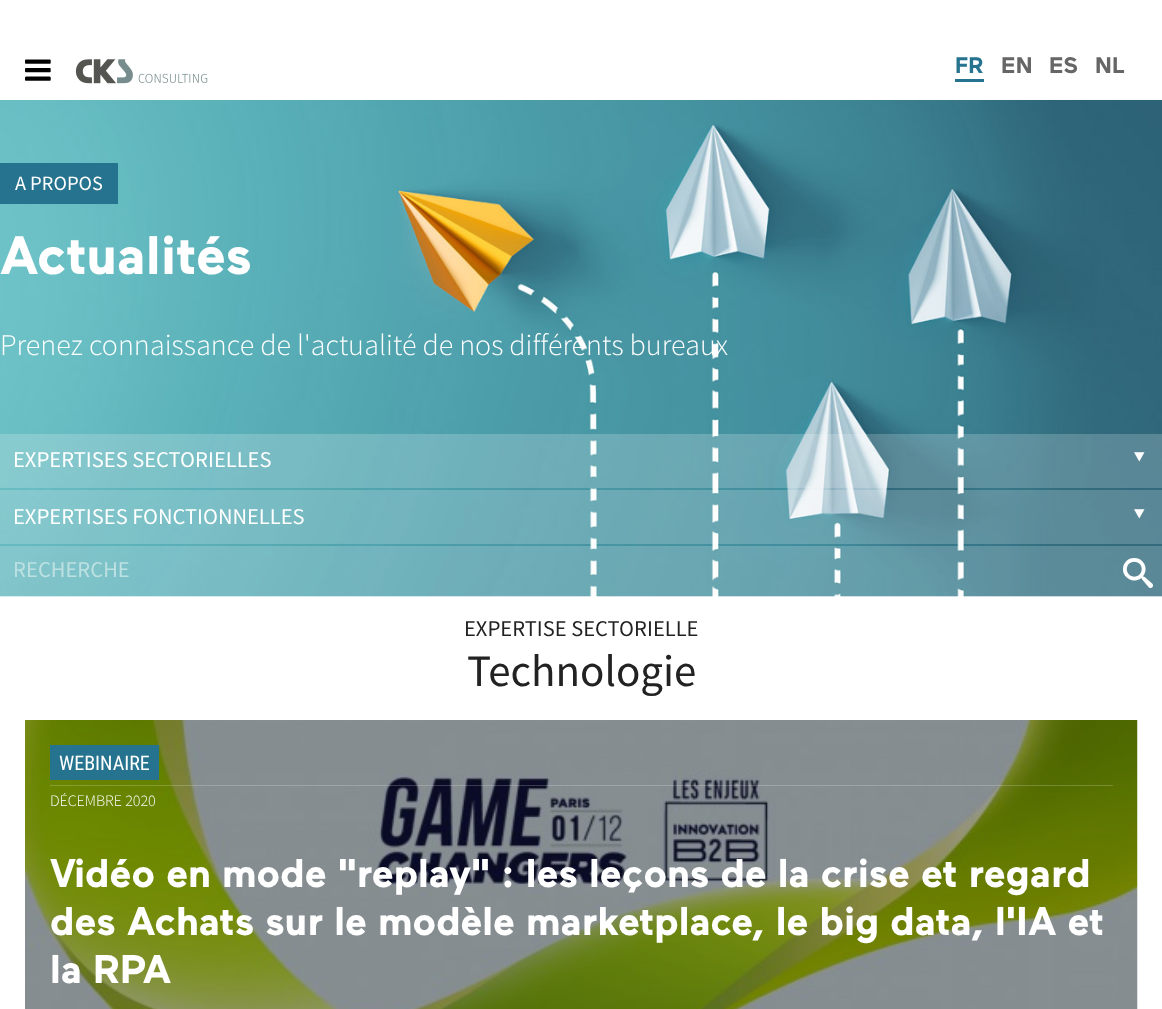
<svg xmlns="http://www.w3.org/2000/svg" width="1162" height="1009">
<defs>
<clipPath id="clip1"><rect x="1123" y="546" width="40" height="50" rx="8"/></clipPath>
</defs>
<rect width="100%" height="100%" fill="#fff"/>
<text x="25" y="83" style="font-family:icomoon;font-size:30px;fill:#000">.</text>
<image x="75" y="59" width="133" height="25" href="media/1.png"/>
<rect x="955" y="79" width="29" height="3" fill="#26738f"/>
<text x="955" y="73" style="font-family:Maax;font-size:22.5px;font-weight:bold;fill:#26738f">FR</text>
<text x="1001" y="73" style="font-family:Maax;font-size:22.5px;font-weight:bold;fill:#666">EN</text>
<text x="1049" y="73" style="font-family:Maax;font-size:22.5px;font-weight:bold;fill:#666">ES</text>
<text x="1095" y="73" style="font-family:Maax;font-size:22.5px;font-weight:bold;fill:#666">NL</text>
<image x="0" y="100" width="1162" height="497" href="media/2.png"/>
<rect y="163" width="118" height="41" fill="#26738f"/>
<text x="15" y="190" style="font-family:Source Sans Pro;font-size:20.25px;fill:#fff">A PROPOS</text>
<text x="0" y="274" style="font-family:Maax;font-size:54px;font-weight:bold;fill:#fff">Actualités</text>
<text x="0" y="355" style="font-family:Source Sans Pro;font-size:30px;font-weight:300;fill:#fff">Prenez connaissance de l'actualité de nos différents bureaux</text>
<rect y="434" width="1162" height="54" fill="#ffffff33"/>
<text x="13" y="467" style="font-family:Source Sans Pro;font-size:22.5px;fill:#fff">EXPERTISES SECTORIELLES</text>
<text x="1128" y="467" style="font-family:icomoon;font-size:22.5px;fill:#fff">6</text>
<rect y="490" width="1162" height="54" fill="#ffffff33"/>
<text x="13" y="524" style="font-family:Source Sans Pro;font-size:22.5px;fill:#fff">EXPERTISES FONCTIONNELLES</text>
<text x="1128" y="524" style="font-family:icomoon;font-size:22.5px;fill:#fff">6</text>
<rect y="546" width="1162" height="50" fill="#ffffff33"/>
<text x="13" y="577" style="font-family:Source Sans Pro;font-size:22.5px;fill:#bde1e3">RECHERCHE</text>
<g clip-path="url(#clip1)">
<text x="1123" y="586" style="font-family:icomoon;font-size:30px;fill:#fff">1</text>
</g>
<text x="464" y="636" style="font-family:Source Sans Pro;font-size:22.5px;fill:#222">EXPERTISE SECTORIELLE</text>
<text x="467" y="686" style="font-family:Source Sans Pro;font-size:45px;fill:#222">Technologie</text>
<image x="25" y="720" width="1113" height="289" href="media/3.png"/>
<rect x="50" y="785" width="1063" height="1" fill="#ffffff33"/>
<rect x="50" y="745" width="109" height="35" fill="#26738f"/>
<text x="59" y="770" style="font-family:Roboto Condensed;font-size:20px;fill:#fff">WEBINAIRE</text>
<text x="50" y="806" style="font-family:Source Sans Pro;font-size:16px;font-weight:300;fill:#fff">DÉCEMBRE 2020</text>
<text x="50" y="887" style="font-family:Maax;font-size:40px;font-weight:bold;fill:#fff">Vidéo en mode "replay" : les leçons de la crise et regard</text>
<text x="50" y="935" style="font-family:Maax;font-size:40px;font-weight:bold;fill:#fff">des Achats sur le modèle marketplace, le big data, l'IA et</text>
<text x="50" y="983" style="font-family:Maax;font-size:40px;font-weight:bold;fill:#fff">la RPA</text>
</svg>
